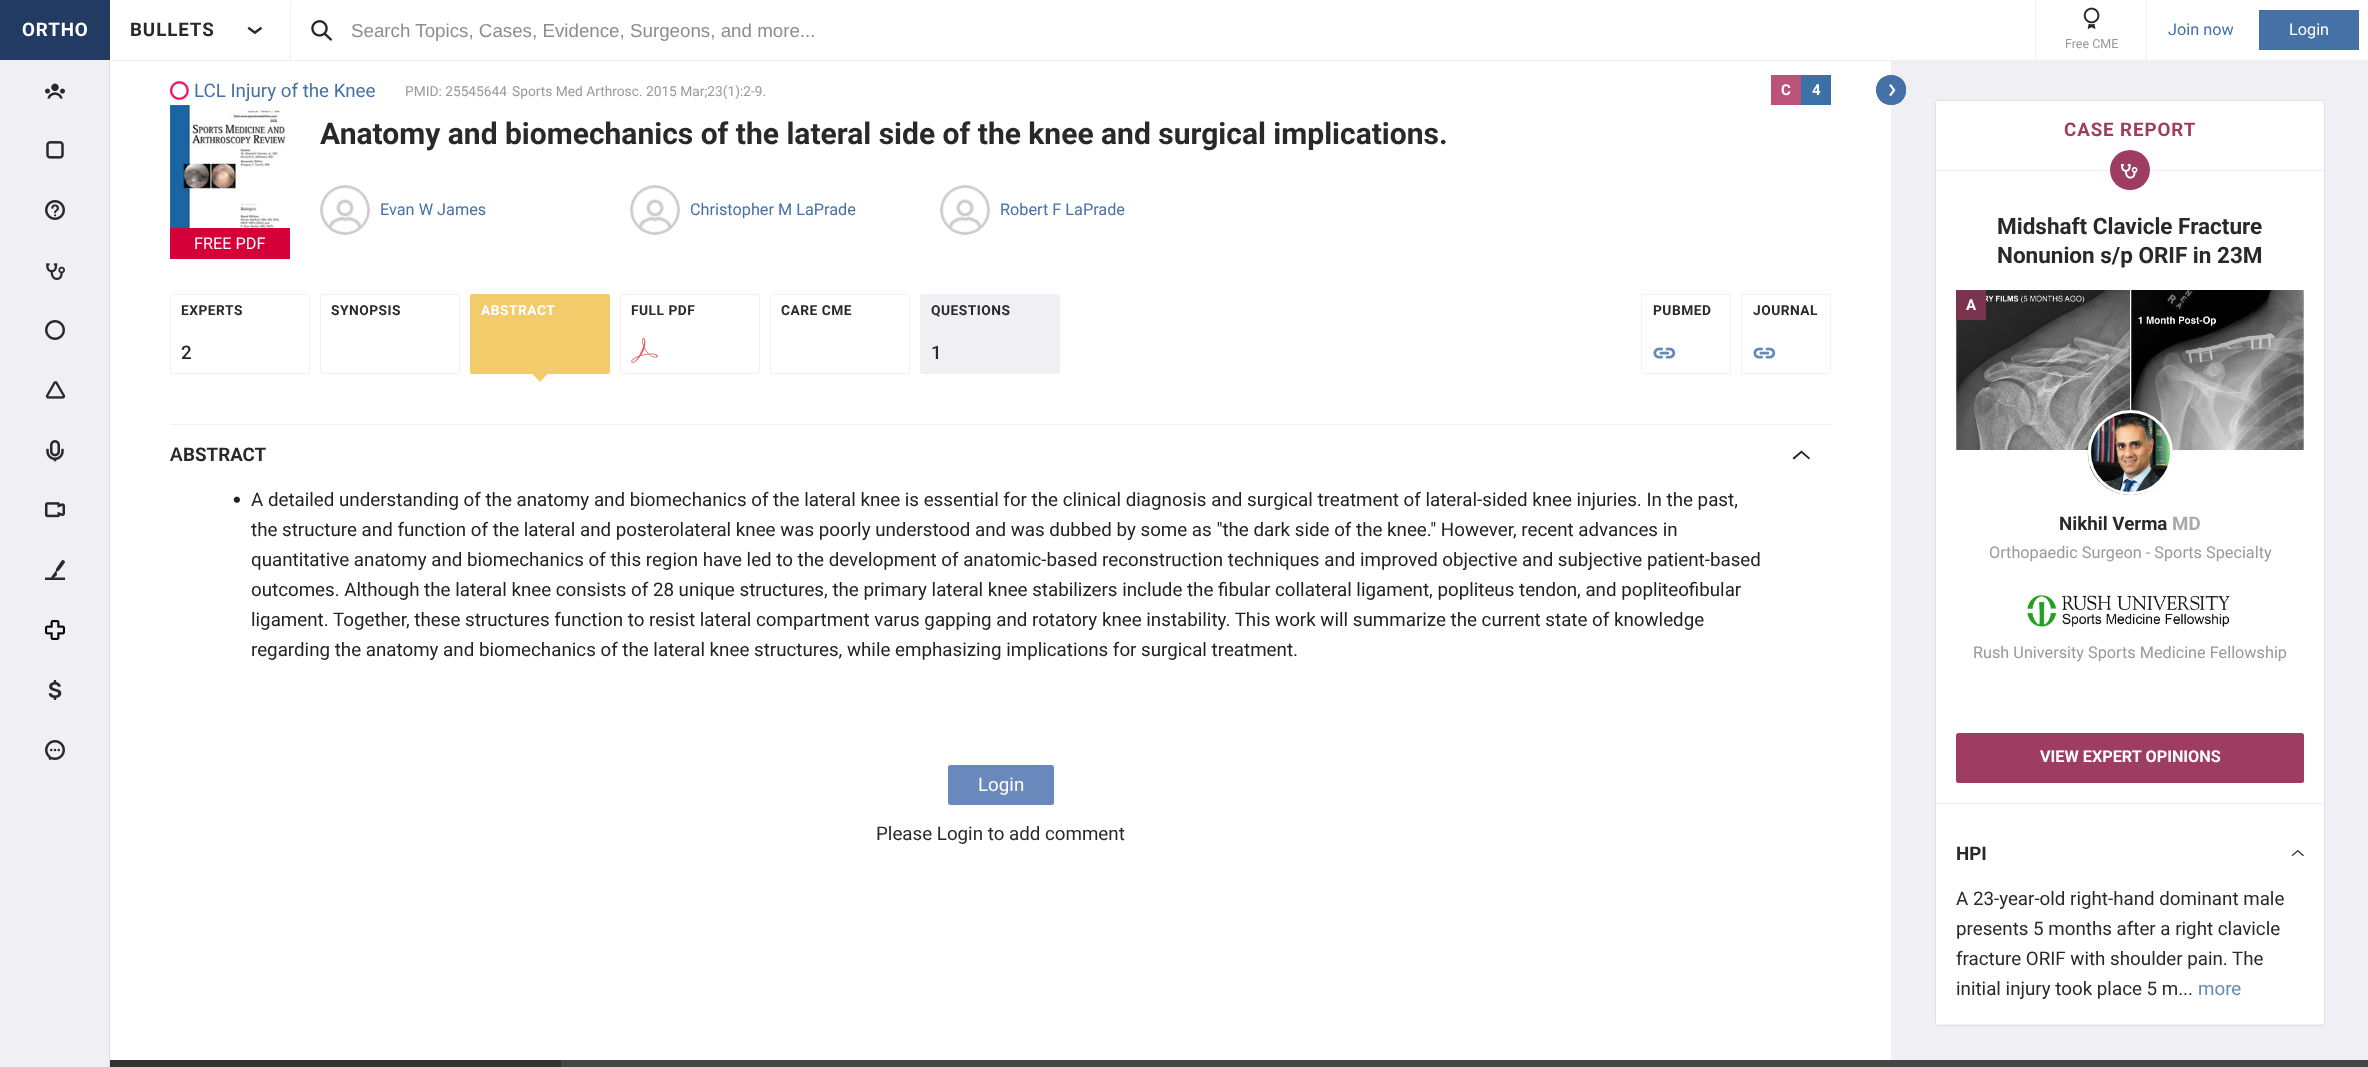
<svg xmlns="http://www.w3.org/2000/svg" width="2368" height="1067">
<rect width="100%" height="100%" fill="#efeff4"/>
<rect x="110" width="2258" height="60" fill="#fff"/>
<rect width="110" height="60" fill="#223b63"/>
<text x="22" y="36" style="font-family:Roboto;font-size:18.75px;font-weight:bold;letter-spacing:0.9px;fill:#fff">ORTHO</text>
<text x="130" y="36" style="font-family:Roboto;font-size:18.75px;font-weight:bold;letter-spacing:0.9px;fill:#292929">BULLETS</text>
<image x="247" y="26" width="16" height="9" href="media/1.png"/>
<rect x="290" y="1" width="1" height="59" fill="#efeff4"/>
<image x="311" y="20" width="21" height="21" href="media/2.png"/>
<text x="351" y="37" style="font-family:Liberation Sans;font-size:18.75px;fill:#8d8d8d">Search Topics, Cases, Evidence, Surgeons, and more...</text>
<text x="2168" y="35" style="font-family:Roboto;font-size:16.25px;fill:#4571a7">Join now</text>
<rect x="2259" y="10" width="100" height="40" fill="#4571a7"/>
<text x="2289" y="35" style="font-family:Roboto;font-size:16.25px;fill:#fff">Login</text>
<rect x="2035" width="1" height="60" fill="#efeff4"/>
<rect x="2146" width="1" height="60" fill="#efeff4"/>
<image x="2083" y="7" width="17" height="23" href="media/3.png"/>
<text x="2065" y="48" style="font-family:Roboto;font-size:12.5px;fill:#999">Free CME</text>
<rect x="109" y="60" width="1" height="1007" fill="#dedee2"/>
<image x="45" y="83" width="20" height="16" href="media/4.png"/>
<image x="46" y="141" width="18" height="18" href="media/5.png"/>
<image x="45" y="200" width="20" height="20" href="media/6.png"/>
<image x="46" y="263" width="19" height="17" href="media/7.png"/>
<image x="45" y="320" width="20" height="20" href="media/8.png"/>
<image x="45" y="381" width="21" height="18" href="media/9.png"/>
<image x="46" y="440" width="18" height="22" href="media/10.png"/>
<image x="45" y="502" width="20" height="16" href="media/11.png"/>
<image x="45" y="560" width="20" height="20" href="media/12.png"/>
<image x="45" y="620" width="20" height="20" href="media/13.png"/>
<image x="48" y="680" width="14" height="20" href="media/14.png"/>
<image x="45" y="740" width="20" height="20" href="media/15.png"/>
<rect x="110" y="61" width="1781" height="999" fill="#fff"/>
<image x="170" y="81" width="19" height="19" href="media/16.png"/>
<text x="194" y="97" style="font-family:Roboto;font-size:18.75px;fill:#4571a7">LCL Injury of the Knee</text>
<text x="405" y="96" style="font-family:Roboto;font-size:13.75px;fill:#999">PMID: 25545644</text>
<text x="512" y="96" style="font-family:Roboto;font-size:13.75px;fill:#999">Sports Med Arthrosc. 2015 Mar;23(1):2-9.</text>
<rect x="1771" y="75" width="30" height="30" fill="#bb527a"/>
<text x="1781" y="95" style="font-family:Roboto;font-size:15px;font-weight:bold;fill:#fff">C</text>
<rect x="1801" y="75" width="30" height="30" fill="#3c71a8"/>
<text x="1812" y="95" style="font-family:Roboto;font-size:15px;font-weight:bold;fill:#fff">4</text>
<text x="320" y="144" style="font-family:Roboto;font-size:30px;font-weight:bold;fill:#292929">Anatomy and biomechanics of the lateral side of the knee and surgical implications.</text>
<image x="320" y="185" width="50" height="50" href="media/17.png"/>
<text x="380" y="215" style="font-family:Roboto;font-size:16.25px;fill:#4571a7">Evan W James</text>
<image x="630" y="185" width="50" height="50" href="media/17.png"/>
<text x="690" y="215" style="font-family:Roboto;font-size:16.25px;fill:#4571a7">Christopher M LaPrade</text>
<image x="940" y="185" width="50" height="50" href="media/18.png"/>
<text x="1000" y="215" style="font-family:Roboto;font-size:16.25px;fill:#4571a7">Robert F LaPrade</text>
<image x="170" y="105" width="116" height="123" href="media/19.png"/>
<rect x="170" y="228" width="120" height="31" fill="#d50039"/>
<text x="194" y="249" style="font-family:Roboto;font-size:16.25px;fill:#fff">FREE PDF</text>
<rect x="170.5" y="294.5" width="139" height="79" rx="2" fill="none" stroke="#efeff4"/>
<text x="181" y="315" style="font-family:Roboto;font-size:13.75px;font-weight:bold;letter-spacing:0.5px;fill:#292929">EXPERTS</text>
<text x="181" y="359" style="font-family:Roboto;font-size:18.75px;font-weight:500;letter-spacing:0.5px;fill:#292929">2</text>
<rect x="320.5" y="294.5" width="139" height="79" rx="2" fill="none" stroke="#efeff4"/>
<text x="331" y="315" style="font-family:Roboto;font-size:13.75px;font-weight:bold;letter-spacing:0.5px;fill:#292929">SYNOPSIS</text>
<rect x="470.5" y="294.5" width="139" height="79" rx="2" fill="#f2cc6a" stroke="#f2cc6a"/>
<rect x="471.5" y="295.5" width="137" height="77" rx="1" fill="none" stroke="#f2cc6a" stroke-width="3"/>
<text x="481" y="315" style="font-family:Roboto;font-size:13.75px;font-weight:bold;letter-spacing:0.5px;fill:#fff">ABSTRACT</text>
<path d="M540 363.5l9 9l-9 9l-9-9z" fill="#f2cc6a"/>
<path d="M547 370.5l2 2l-9 9l-2-2z" fill="#f2cc6a"/>
<path d="M533 370.5l9 9l-2 2l-9-9z" fill="#f2cc6a"/>
<rect x="620.5" y="294.5" width="139" height="79" rx="2" fill="none" stroke="#efeff4"/>
<text x="631" y="315" style="font-family:Roboto;font-size:13.75px;font-weight:bold;letter-spacing:0.5px;fill:#292929">FULL PDF</text>
<image x="631" y="337" width="27" height="26" href="media/20.png"/>
<rect x="770.5" y="294.5" width="139" height="79" rx="2" fill="none" stroke="#efeff4"/>
<text x="781" y="315" style="font-family:Roboto;font-size:13.75px;font-weight:bold;letter-spacing:0.5px;fill:#292929">CARE CME</text>
<rect x="920.5" y="294.5" width="139" height="79" rx="2" fill="#efeff4" stroke="#efeff4"/>
<text x="931" y="315" style="font-family:Roboto;font-size:13.75px;font-weight:bold;letter-spacing:0.5px;fill:#292929">QUESTIONS</text>
<text x="931" y="359" style="font-family:Roboto;font-size:18.75px;font-weight:500;letter-spacing:0.5px;fill:#292929">1</text>
<rect x="1641.5" y="294.5" width="89" height="79" rx="2" fill="none" stroke="#efeff4"/>
<text x="1653" y="315" style="font-family:Roboto;font-size:13.75px;font-weight:bold;letter-spacing:0.5px;fill:#292929">PUBMED</text>
<image x="1653" y="347" width="23" height="12" href="media/21.png"/>
<rect x="1741.5" y="294.5" width="89" height="79" rx="2" fill="none" stroke="#efeff4"/>
<text x="1753" y="315" style="font-family:Roboto;font-size:13.75px;font-weight:bold;letter-spacing:0.5px;fill:#292929">JOURNAL</text>
<image x="1753" y="347" width="23" height="12" href="media/21.png"/>
<rect x="170" y="424" width="1661" height="1" fill="#efeff4"/>
<text x="170" y="461" style="font-family:Noto Sans;font-size:18.75px;font-weight:600;fill:#292929">A</text>
<text x="183" y="461" style="font-family:Roboto;font-size:18.75px;font-weight:bold;fill:#292929">BSTRACT</text>
<path d="M1809 459.5l1-1.5l-8.5-7.5l-9 7.5l1.5 1.5l7.5-6.5z" fill="#292929"/>
<image x="233" y="496" width="7" height="7" href="media/22.png"/>
<text x="251" y="506" style="font-family:Roboto;font-size:18.75px;fill:#232323">A detailed understanding of the anatomy and biomechanics of the lateral knee is essential for the clinical diagnosis and surgical treatment of lateral-sided knee injuries. In the past,</text>
<text x="251" y="536" style="font-family:Roboto;font-size:18.75px;fill:#232323">the structure and function of the lateral and posterolateral knee was poorly understood and was dubbed by some as "the dark side of the knee." However, recent advances in</text>
<text x="251" y="566" style="font-family:Roboto;font-size:18.75px;fill:#232323">quantitative anatomy and biomechanics of this region have led to the development of anatomic-based reconstruction techniques and improved objective and subjective patient-based</text>
<text x="251" y="596" style="font-family:Roboto;font-size:18.75px;fill:#232323">outcomes. Although the lateral knee consists of 28 unique structures, the primary lateral knee stabilizers include the fibular collateral ligament, popliteus tendon, and popliteofibular</text>
<text x="251" y="626" style="font-family:Roboto;font-size:18.75px;fill:#232323">ligament. Together, these structures function to resist lateral compartment varus gapping and rotatory knee instability. This work will summarize the current state of knowledge</text>
<text x="251" y="656" style="font-family:Roboto;font-size:18.75px;fill:#232323">regarding the anatomy and biomechanics of the lateral knee structures, while emphasizing implications for surgical treatment.</text>
<rect x="948" y="765" width="106" height="40" rx="2.5" fill="#6989bd"/>
<text x="978" y="791" style="font-family:Roboto;font-size:18.75px;fill:#fff">Login</text>
<text x="876" y="840" style="font-family:Roboto;font-size:18.75px;fill:#292929">Please Login to add comment</text>
<path d="M1876 90c0-8.5 7-15 15-15c8.5 0 15 6.5 15 15c0 8.5-6.5 15-15 15c-8 0-15-6.5-15-15z" fill="#4571a7"/>
<path d="M1877 90c0-19 28.5-19 28.5 0c0 19-28.5 19-28.5 0z" fill="none" stroke="#4571a7" stroke-width="1.2"/>
<image x="1889" y="84" width="7" height="13" href="media/23.png"/>
<rect x="1935" y="100" width="390" height="926" rx="2.5" fill="#fff"/>
<rect x="1935.5" y="100.5" width="389" height="925" rx="2" fill="none" stroke="#9999994d"/>
<rect x="1936" y="170" width="388" height="1" fill="#efeff4"/>
<text x="2064" y="136" style="font-family:Roboto;font-size:18.75px;font-weight:bold;letter-spacing:0.9px;fill:#9e3c61">CASE REPORT</text>
<circle cx="2130" cy="170" r="20" fill="#9e3c61"/>
<image x="2120" y="164" width="18" height="15" href="media/24.png"/>
<rect x="1936" y="803" width="388" height="1" fill="#efeff4"/>
<text x="1997" y="234" style="font-family:Roboto;font-size:22.5px;font-weight:bold;fill:#292929">Midshaft Clavicle Fracture</text>
<text x="1997" y="263" style="font-family:Roboto;font-size:22.5px;font-weight:bold;fill:#292929">Nonunion s/p ORIF in 23M</text>
<image x="1956" y="290" width="174" height="160" href="media/25.png"/>
<image x="2131" y="290" width="173" height="160" href="media/26.png"/>
<rect x="1956" y="290" width="30" height="30" fill="#7a344e"/>
<text x="1966" y="310" style="font-family:Roboto;font-size:15px;font-weight:bold;fill:#fff">A</text>
<image x="2087" y="410" width="86" height="85" href="media/27.png"/>
<circle cx="2130.5" cy="452.5" r="41" fill="none" stroke="#fff" stroke-width="3"/>
<text x="2059" y="530" style="font-family:Roboto;font-size:18.75px;font-weight:bold;fill:#292929">Nikhil Verma</text>
<text x="2172" y="530" style="font-family:Roboto;font-size:18.75px;font-weight:bold;fill:#a9a9a9">MD</text>
<text x="1989" y="558" style="font-family:Roboto;font-size:16.25px;fill:#999">Orthopaedic Surgeon - Sports Specialty</text>
<image x="2027" y="594" width="203" height="33" href="media/28.png"/>
<text x="1973" y="658" style="font-family:Roboto;font-size:16.25px;fill:#999">Rush University Sports Medicine Fellowship</text>
<rect x="1956" y="733" width="348" height="50" rx="2.5" fill="#9e3c61"/>
<text x="2040" y="762" style="font-family:Roboto;font-size:16.25px;font-weight:bold;fill:#fff">VIEW EXPERT OPINIONS</text>
<rect x="1936" y="1024" width="388" height="1" fill="#efeff4"/>
<text x="1956" y="860" style="font-family:Roboto;font-size:18.75px;font-weight:bold;fill:#292929">HPI</text>
<image x="2291" y="850" width="13" height="7" href="media/29.png"/>
<text x="1956" y="905" style="font-family:Roboto;font-size:18.75px;fill:#292929">A 23-year-old right-hand dominant male</text>
<text x="1956" y="935" style="font-family:Roboto;font-size:18.75px;fill:#292929">presents 5 months after a right clavicle</text>
<text x="1956" y="965" style="font-family:Roboto;font-size:18.75px;fill:#292929">fracture ORIF with shoulder pain.</text>
<text x="2232" y="965" style="font-family:Roboto;font-size:18.75px;fill:#292929">The</text>
<text x="1956" y="995" style="font-family:Roboto;font-size:18.75px;fill:#292929">initial injury took place 5 m...</text>
<text x="2198" y="995" style="font-family:Roboto;font-size:18.75px;fill:#658ab6">more</text>
<rect x="561" y="1060" width="1807" height="7" fill="#464646"/>
<rect x="110" y="1060" width="451" height="7" fill="#333"/>
</svg>
